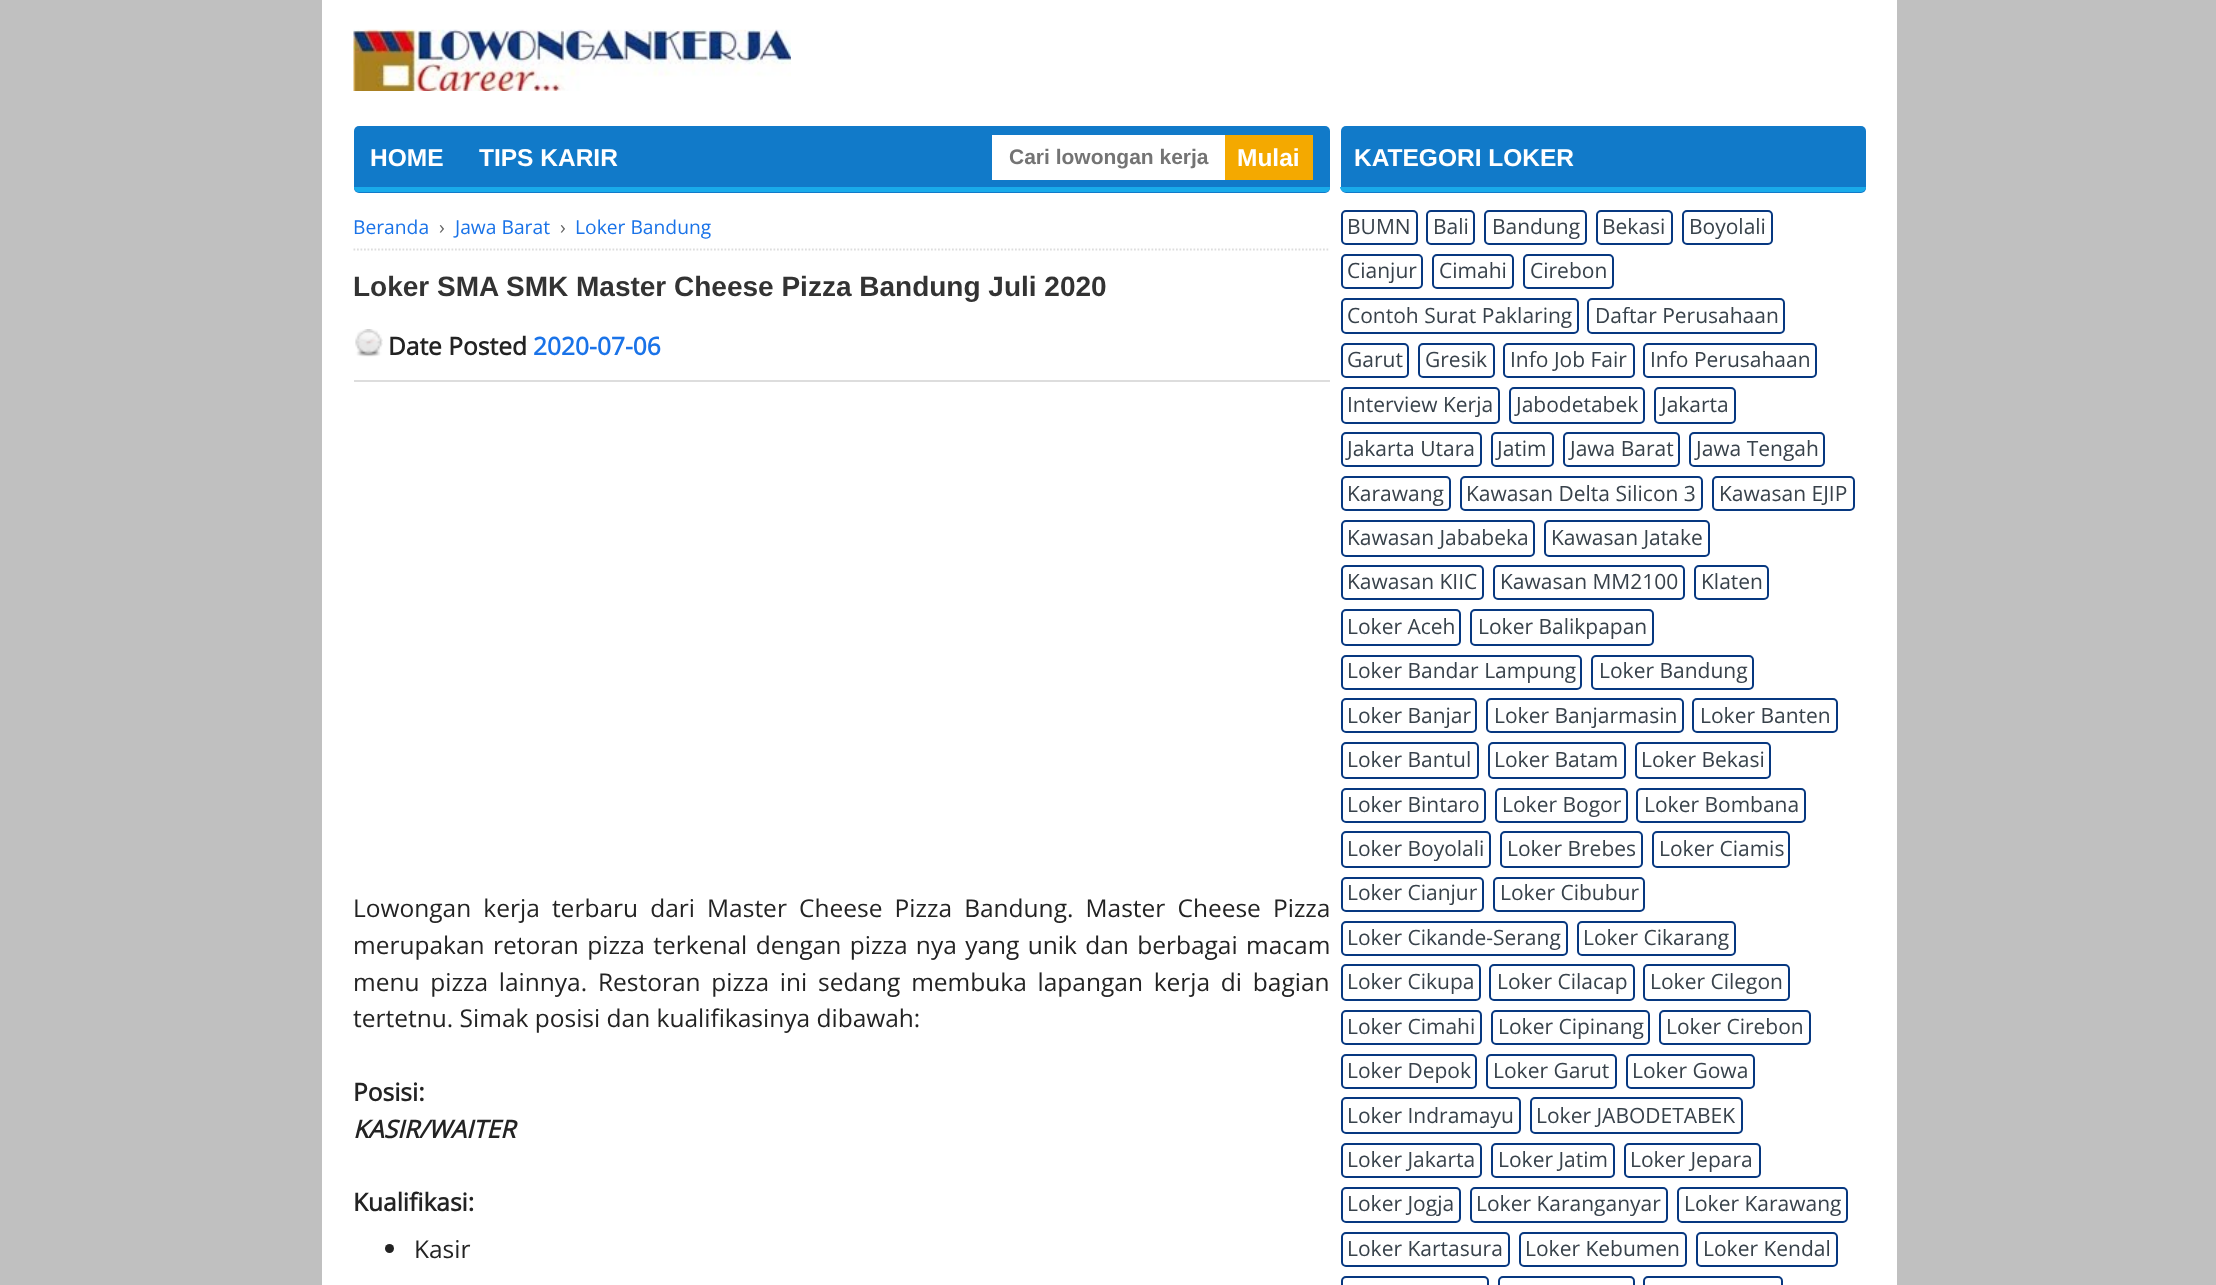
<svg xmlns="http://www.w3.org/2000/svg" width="2216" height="1285">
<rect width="100%" height="100%" fill="#c0c0c0"/>
<rect x="322" width="1575" height="1285" fill="#fff"/>
<image x="353" y="29" width="438" height="62" href="media/1.png"/>
<rect x="354" y="126" width="976" height="67" rx="5" fill="#117ac9"/>
<path d="M1325 192c3 0 5-2 5-5h-976c0 3 2 5 5 5z" fill="#19abea"/>
<text x="370" y="166" style="font-family:Arimo;font-size:24.5px;font-weight:bold;fill:#fff">HOME</text>
<text x="479" y="166" style="font-family:Arimo;font-size:24.5px;font-weight:bold;fill:#fff">TIPS KARIR</text>
<rect x="992" y="135" width="233" height="45" fill="#fff"/>
<text x="1009" y="164" style="font-family:Arimo;font-size:21px;font-weight:bold;fill:#747474">Cari lowongan kerja</text>
<rect x="1225" y="135" width="88" height="45" fill="#f4a900"/>
<text x="1237" y="166" style="font-family:Arimo;font-size:24.5px;font-weight:bold;fill:#fff">Mulai</text>
<path d="M353.5 249.5h976.5" fill="none" stroke="#ddd" stroke-width="1.8" stroke-dasharray="1.75 1.75"/>
<text x="353" y="234" style="font-family:Open Sans;font-size:19.25px;fill:#1a73e8">Beranda</text>
<text x="439" y="234" style="font-family:Open Sans;font-size:19.25px;fill:#666">›</text>
<text x="455" y="234" style="font-family:Open Sans;font-size:19.25px;fill:#1a73e8">Jawa Barat</text>
<text x="560" y="234" style="font-family:Open Sans;font-size:19.25px;fill:#666">›</text>
<text x="575" y="234" style="font-family:Open Sans;font-size:19.25px;fill:#1a73e8">Loker Bandung</text>
<text x="353" y="296" style="font-family:Arimo;font-size:28px;font-weight:bold;fill:#333">Loker SMA SMK Master Cheese Pizza Bandung Juli 2020</text>
<image x="355" y="329" width="28" height="28" href="media/2.png"/>
<text x="388" y="355" style="font-family:Open Sans;font-size:24.5px;font-weight:bold;fill:#232323">Date Posted</text>
<text x="533" y="355" style="font-family:Open Sans;font-size:24.5px;font-weight:bold;fill:#1a73e8">2020-07-06</text>
<rect x="354" y="380" width="976" height="2" fill="#ddd"/>
<text x="353" y="917" word-spacing="5.75" style="font-family:Open Sans;font-size:24.5px;fill:#232323">Lowongan kerja terbaru dari Master Cheese Pizza Bandung. Master Cheese Pizza</text>
<text x="353" y="954" word-spacing="2" style="font-family:Open Sans;font-size:24.5px;fill:#232323">merupakan retoran pizza terkenal dengan pizza nya yang unik dan berbagai macam</text>
<text x="353" y="991" word-spacing="4.4" style="font-family:Open Sans;font-size:24.5px;fill:#232323">menu pizza lainnya. Restoran pizza ini sedang membuka lapangan kerja di bagian</text>
<text x="353" y="1027" style="font-family:Open Sans;font-size:24.5px;fill:#232323">tertetnu. Simak posisi dan kualifikasinya dibawah:</text>
<text x="353" y="1101" style="font-family:Open Sans;font-size:24.5px;font-weight:bold;fill:#232323">Posisi:</text>
<text x="353" y="1138" style="font-family:Open Sans;font-size:24.5px;font-weight:bold;font-style:italic;fill:#232323">KASIR/WAITER</text>
<text x="353" y="1211" style="font-family:Open Sans;font-size:24.5px;font-weight:bold;fill:#232323">Kualifikasi:</text>
<circle cx="389.5" cy="1248.5" r="4.5" fill="#232323"/>
<text x="414" y="1258" style="font-family:Open Sans;font-size:24.5px;fill:#232323">Kasir</text>
<rect x="1341" y="126" width="525" height="67" rx="5" fill="#117ac9"/>
<path d="M1866 187c0 3-3 5-6 5h-514c-3 0-6-2-6-5z" fill="#19abea"/>
<text x="1354" y="166" style="font-family:Arimo;font-size:24.5px;font-weight:bold;fill:#fff">KATEGORI LOKER</text>
<rect x="1342" y="211" width="75" height="33" rx="4" fill="none" stroke="#073880" stroke-width="2"/>
<text x="1347" y="234" style="font-family:Open Sans;font-size:21px;fill:#38424b">BUMN</text>
<rect x="1427" y="211" width="47" height="33" rx="4" fill="none" stroke="#073880" stroke-width="2"/>
<text x="1433" y="234" style="font-family:Open Sans;font-size:21px;fill:#38424b">Bali</text>
<rect x="1485" y="211" width="101" height="33" rx="4" fill="none" stroke="#073880" stroke-width="2"/>
<text x="1492" y="234" style="font-family:Open Sans;font-size:21px;fill:#38424b">Bandung</text>
<rect x="1597" y="211" width="75" height="33" rx="4" fill="none" stroke="#073880" stroke-width="2"/>
<text x="1602" y="234" style="font-family:Open Sans;font-size:21px;fill:#38424b">Bekasi</text>
<rect x="1683" y="211" width="89" height="33" rx="4" fill="none" stroke="#073880" stroke-width="2"/>
<text x="1689" y="234" style="font-family:Open Sans;font-size:21px;fill:#38424b">Boyolali</text>
<rect x="1342" y="255" width="80" height="33" rx="4" fill="none" stroke="#073880" stroke-width="2"/>
<text x="1347" y="278" style="font-family:Open Sans;font-size:21px;fill:#38424b">Cianjur</text>
<rect x="1433" y="255" width="80" height="33" rx="4" fill="none" stroke="#073880" stroke-width="2"/>
<text x="1439" y="278" style="font-family:Open Sans;font-size:21px;fill:#38424b">Cimahi</text>
<rect x="1524" y="255" width="89" height="33" rx="4" fill="none" stroke="#073880" stroke-width="2"/>
<text x="1530" y="278" style="font-family:Open Sans;font-size:21px;fill:#38424b">Cirebon</text>
<rect x="1342" y="299" width="236" height="34" rx="4" fill="none" stroke="#073880" stroke-width="2"/>
<text x="1347" y="323" style="font-family:Open Sans;font-size:21px;fill:#38424b">Contoh Surat Paklaring</text>
<rect x="1588" y="299" width="196" height="34" rx="4" fill="none" stroke="#073880" stroke-width="2"/>
<text x="1595" y="323" style="font-family:Open Sans;font-size:21px;fill:#38424b">Daftar Perusahaan</text>
<rect x="1342" y="344" width="66" height="33" rx="4" fill="none" stroke="#073880" stroke-width="2"/>
<text x="1347" y="367" style="font-family:Open Sans;font-size:21px;fill:#38424b">Garut</text>
<rect x="1419" y="344" width="75" height="33" rx="4" fill="none" stroke="#073880" stroke-width="2"/>
<text x="1425" y="367" style="font-family:Open Sans;font-size:21px;fill:#38424b">Gresik</text>
<rect x="1504" y="344" width="130" height="33" rx="4" fill="none" stroke="#073880" stroke-width="2"/>
<text x="1510" y="367" style="font-family:Open Sans;font-size:21px;fill:#38424b">Info Job Fair</text>
<rect x="1644" y="344" width="172" height="33" rx="4" fill="none" stroke="#073880" stroke-width="2"/>
<text x="1650" y="367" style="font-family:Open Sans;font-size:21px;fill:#38424b">Info Perusahaan</text>
<rect x="1342" y="388" width="157" height="35" rx="4" fill="none" stroke="#073880" stroke-width="2"/>
<text x="1347" y="412" style="font-family:Open Sans;font-size:21px;fill:#38424b">Interview Kerja</text>
<rect x="1510" y="388" width="134" height="35" rx="4" fill="none" stroke="#073880" stroke-width="2"/>
<text x="1516" y="412" style="font-family:Open Sans;font-size:21px;fill:#38424b">Jabodetabek</text>
<rect x="1655" y="388" width="80" height="35" rx="4" fill="none" stroke="#073880" stroke-width="2"/>
<text x="1661" y="412" style="font-family:Open Sans;font-size:21px;fill:#38424b">Jakarta</text>
<rect x="1342" y="433" width="139" height="33" rx="4" fill="none" stroke="#073880" stroke-width="2"/>
<text x="1347" y="456" style="font-family:Open Sans;font-size:21px;fill:#38424b">Jakarta Utara</text>
<rect x="1492" y="433" width="61" height="33" rx="4" fill="none" stroke="#073880" stroke-width="2"/>
<text x="1497" y="456" style="font-family:Open Sans;font-size:21px;fill:#38424b">Jatim</text>
<rect x="1564" y="433" width="115" height="33" rx="4" fill="none" stroke="#073880" stroke-width="2"/>
<text x="1570" y="456" style="font-family:Open Sans;font-size:21px;fill:#38424b">Jawa Barat</text>
<rect x="1690" y="433" width="134" height="33" rx="4" fill="none" stroke="#073880" stroke-width="2"/>
<text x="1696" y="456" style="font-family:Open Sans;font-size:21px;fill:#38424b">Jawa Tengah</text>
<rect x="1342" y="477" width="108" height="33" rx="4" fill="none" stroke="#073880" stroke-width="2"/>
<text x="1347" y="501" style="font-family:Open Sans;font-size:21px;fill:#38424b">Karawang</text>
<rect x="1461" y="477" width="241" height="33" rx="4" fill="none" stroke="#073880" stroke-width="2"/>
<text x="1466" y="501" style="font-family:Open Sans;font-size:21px;fill:#38424b">Kawasan Delta Silicon 3</text>
<rect x="1713" y="477" width="141" height="33" rx="4" fill="none" stroke="#073880" stroke-width="2"/>
<text x="1719" y="501" style="font-family:Open Sans;font-size:21px;fill:#38424b">Kawasan EJIP</text>
<rect x="1342" y="521" width="192" height="35" rx="4" fill="none" stroke="#073880" stroke-width="2"/>
<text x="1347" y="545" style="font-family:Open Sans;font-size:21px;fill:#38424b">Kawasan Jababeka</text>
<rect x="1545" y="521" width="164" height="35" rx="4" fill="none" stroke="#073880" stroke-width="2"/>
<text x="1551" y="545" style="font-family:Open Sans;font-size:21px;fill:#38424b">Kawasan Jatake</text>
<rect x="1342" y="566" width="141" height="33" rx="4" fill="none" stroke="#073880" stroke-width="2"/>
<text x="1347" y="589" style="font-family:Open Sans;font-size:21px;fill:#38424b">Kawasan KIIC</text>
<rect x="1494" y="566" width="190" height="33" rx="4" fill="none" stroke="#073880" stroke-width="2"/>
<text x="1500" y="589" style="font-family:Open Sans;font-size:21px;fill:#38424b">Kawasan MM2100</text>
<rect x="1695" y="566" width="73" height="33" rx="4" fill="none" stroke="#073880" stroke-width="2"/>
<text x="1701" y="589" style="font-family:Open Sans;font-size:21px;fill:#38424b">Klaten</text>
<rect x="1342" y="610" width="118" height="35" rx="4" fill="none" stroke="#073880" stroke-width="2"/>
<text x="1347" y="634" style="font-family:Open Sans;font-size:21px;fill:#38424b">Loker Aceh</text>
<rect x="1471" y="610" width="182" height="35" rx="4" fill="none" stroke="#073880" stroke-width="2"/>
<text x="1478" y="634" style="font-family:Open Sans;font-size:21px;fill:#38424b">Loker Balikpapan</text>
<rect x="1342" y="656" width="239" height="33" rx="4" fill="none" stroke="#073880" stroke-width="2"/>
<text x="1347" y="678" style="font-family:Open Sans;font-size:21px;fill:#38424b">Loker Bandar Lampung</text>
<rect x="1592" y="656" width="161" height="33" rx="4" fill="none" stroke="#073880" stroke-width="2"/>
<text x="1599" y="678" style="font-family:Open Sans;font-size:21px;fill:#38424b">Loker Bandung</text>
<rect x="1342" y="699" width="134" height="33" rx="4" fill="none" stroke="#073880" stroke-width="2"/>
<text x="1347" y="723" style="font-family:Open Sans;font-size:21px;fill:#38424b">Loker Banjar</text>
<rect x="1487" y="699" width="196" height="33" rx="4" fill="none" stroke="#073880" stroke-width="2"/>
<text x="1494" y="723" style="font-family:Open Sans;font-size:21px;fill:#38424b">Loker Banjarmasin</text>
<rect x="1693" y="699" width="144" height="33" rx="4" fill="none" stroke="#073880" stroke-width="2"/>
<text x="1700" y="723" style="font-family:Open Sans;font-size:21px;fill:#38424b">Loker Banten</text>
<rect x="1342" y="743" width="136" height="35" rx="4" fill="none" stroke="#073880" stroke-width="2"/>
<text x="1347" y="767" style="font-family:Open Sans;font-size:21px;fill:#38424b">Loker Bantul</text>
<rect x="1489" y="743" width="136" height="35" rx="4" fill="none" stroke="#073880" stroke-width="2"/>
<text x="1494" y="767" style="font-family:Open Sans;font-size:21px;fill:#38424b">Loker Batam</text>
<rect x="1636" y="743" width="134" height="35" rx="4" fill="none" stroke="#073880" stroke-width="2"/>
<text x="1641" y="767" style="font-family:Open Sans;font-size:21px;fill:#38424b">Loker Bekasi</text>
<rect x="1342" y="789" width="143" height="33" rx="4" fill="none" stroke="#073880" stroke-width="2"/>
<text x="1347" y="812" style="font-family:Open Sans;font-size:21px;fill:#38424b">Loker Bintaro</text>
<rect x="1496" y="789" width="131" height="33" rx="4" fill="none" stroke="#073880" stroke-width="2"/>
<text x="1502" y="812" style="font-family:Open Sans;font-size:21px;fill:#38424b">Loker Bogor</text>
<rect x="1637" y="789" width="168" height="33" rx="4" fill="none" stroke="#073880" stroke-width="2"/>
<text x="1644" y="812" style="font-family:Open Sans;font-size:21px;fill:#38424b">Loker Bombana</text>
<rect x="1342" y="832" width="148" height="35" rx="4" fill="none" stroke="#073880" stroke-width="2"/>
<text x="1347" y="856" style="font-family:Open Sans;font-size:21px;fill:#38424b">Loker Boyolali</text>
<rect x="1501" y="832" width="141" height="35" rx="4" fill="none" stroke="#073880" stroke-width="2"/>
<text x="1507" y="856" style="font-family:Open Sans;font-size:21px;fill:#38424b">Loker Brebes</text>
<rect x="1653" y="832" width="136" height="35" rx="4" fill="none" stroke="#073880" stroke-width="2"/>
<text x="1659" y="856" style="font-family:Open Sans;font-size:21px;fill:#38424b">Loker Ciamis</text>
<rect x="1342" y="878" width="141" height="33" rx="4" fill="none" stroke="#073880" stroke-width="2"/>
<text x="1347" y="900" style="font-family:Open Sans;font-size:21px;fill:#38424b">Loker Cianjur</text>
<rect x="1494" y="878" width="150" height="33" rx="4" fill="none" stroke="#073880" stroke-width="2"/>
<text x="1500" y="900" style="font-family:Open Sans;font-size:21px;fill:#38424b">Loker Cibubur</text>
<rect x="1342" y="922" width="225" height="33" rx="4" fill="none" stroke="#073880" stroke-width="2"/>
<text x="1347" y="945" style="font-family:Open Sans;font-size:21px;fill:#38424b">Loker Cikande-Serang</text>
<rect x="1578" y="922" width="157" height="33" rx="4" fill="none" stroke="#073880" stroke-width="2"/>
<text x="1583" y="945" style="font-family:Open Sans;font-size:21px;fill:#38424b">Loker Cikarang</text>
<rect x="1342" y="965" width="138" height="35" rx="4" fill="none" stroke="#073880" stroke-width="2"/>
<text x="1347" y="989" style="font-family:Open Sans;font-size:21px;fill:#38424b">Loker Cikupa</text>
<rect x="1490" y="965" width="144" height="35" rx="4" fill="none" stroke="#073880" stroke-width="2"/>
<text x="1497" y="989" style="font-family:Open Sans;font-size:21px;fill:#38424b">Loker Cilacap</text>
<rect x="1644" y="965" width="145" height="35" rx="4" fill="none" stroke="#073880" stroke-width="2"/>
<text x="1650" y="989" style="font-family:Open Sans;font-size:21px;fill:#38424b">Loker Cilegon</text>
<rect x="1342" y="1011" width="139" height="33" rx="4" fill="none" stroke="#073880" stroke-width="2"/>
<text x="1347" y="1034" style="font-family:Open Sans;font-size:21px;fill:#38424b">Loker Cimahi</text>
<rect x="1492" y="1011" width="157" height="33" rx="4" fill="none" stroke="#073880" stroke-width="2"/>
<text x="1498" y="1034" style="font-family:Open Sans;font-size:21px;fill:#38424b">Loker Cipinang</text>
<rect x="1660" y="1011" width="150" height="33" rx="4" fill="none" stroke="#073880" stroke-width="2"/>
<text x="1666" y="1034" style="font-family:Open Sans;font-size:21px;fill:#38424b">Loker Cirebon</text>
<rect x="1342" y="1055" width="134" height="33" rx="4" fill="none" stroke="#073880" stroke-width="2"/>
<text x="1347" y="1078" style="font-family:Open Sans;font-size:21px;fill:#38424b">Loker Depok</text>
<rect x="1487" y="1055" width="129" height="33" rx="4" fill="none" stroke="#073880" stroke-width="2"/>
<text x="1493" y="1078" style="font-family:Open Sans;font-size:21px;fill:#38424b">Loker Garut</text>
<rect x="1627" y="1055" width="127" height="33" rx="4" fill="none" stroke="#073880" stroke-width="2"/>
<text x="1632" y="1078" style="font-family:Open Sans;font-size:21px;fill:#38424b">Loker Gowa</text>
<rect x="1342" y="1098" width="178" height="35" rx="4" fill="none" stroke="#073880" stroke-width="2"/>
<text x="1347" y="1123" style="font-family:Open Sans;font-size:21px;fill:#38424b">Loker Indramayu</text>
<rect x="1531" y="1098" width="211" height="35" rx="4" fill="none" stroke="#073880" stroke-width="2"/>
<text x="1536" y="1123" style="font-family:Open Sans;font-size:21px;fill:#38424b">Loker JABODETABEK</text>
<rect x="1342" y="1144" width="139" height="33" rx="4" fill="none" stroke="#073880" stroke-width="2"/>
<text x="1347" y="1167" style="font-family:Open Sans;font-size:21px;fill:#38424b">Loker Jakarta</text>
<rect x="1492" y="1144" width="122" height="33" rx="4" fill="none" stroke="#073880" stroke-width="2"/>
<text x="1498" y="1167" style="font-family:Open Sans;font-size:21px;fill:#38424b">Loker Jatim</text>
<rect x="1625" y="1144" width="135" height="33" rx="4" fill="none" stroke="#073880" stroke-width="2"/>
<text x="1630" y="1167" style="font-family:Open Sans;font-size:21px;fill:#38424b">Loker Jepara</text>
<rect x="1342" y="1188" width="118" height="34" rx="4" fill="none" stroke="#073880" stroke-width="2"/>
<text x="1347" y="1211" style="font-family:Open Sans;font-size:21px;fill:#38424b">Loker Jogja</text>
<rect x="1471" y="1188" width="196" height="34" rx="4" fill="none" stroke="#073880" stroke-width="2"/>
<text x="1476" y="1211" style="font-family:Open Sans;font-size:21px;fill:#38424b">Loker Karanganyar</text>
<rect x="1678" y="1188" width="169" height="34" rx="4" fill="none" stroke="#073880" stroke-width="2"/>
<text x="1684" y="1211" style="font-family:Open Sans;font-size:21px;fill:#38424b">Loker Karawang</text>
<rect x="1342" y="1233" width="167" height="33" rx="4" fill="none" stroke="#073880" stroke-width="2"/>
<text x="1347" y="1256" style="font-family:Open Sans;font-size:21px;fill:#38424b">Loker Kartasura</text>
<rect x="1520" y="1233" width="166" height="33" rx="4" fill="none" stroke="#073880" stroke-width="2"/>
<text x="1525" y="1256" style="font-family:Open Sans;font-size:21px;fill:#38424b">Loker Kebumen</text>
<rect x="1697" y="1233" width="140" height="33" rx="4" fill="none" stroke="#073880" stroke-width="2"/>
<text x="1703" y="1256" style="font-family:Open Sans;font-size:21px;fill:#38424b">Loker Kendal</text>
<rect x="1342" y="1277" width="146" height="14" rx="4" fill="none" stroke="#073880" stroke-width="2"/>
<rect x="1499" y="1277" width="135" height="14" rx="4" fill="none" stroke="#073880" stroke-width="2"/>
<rect x="1644" y="1277" width="138" height="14" rx="4" fill="none" stroke="#073880" stroke-width="2"/>
</svg>
